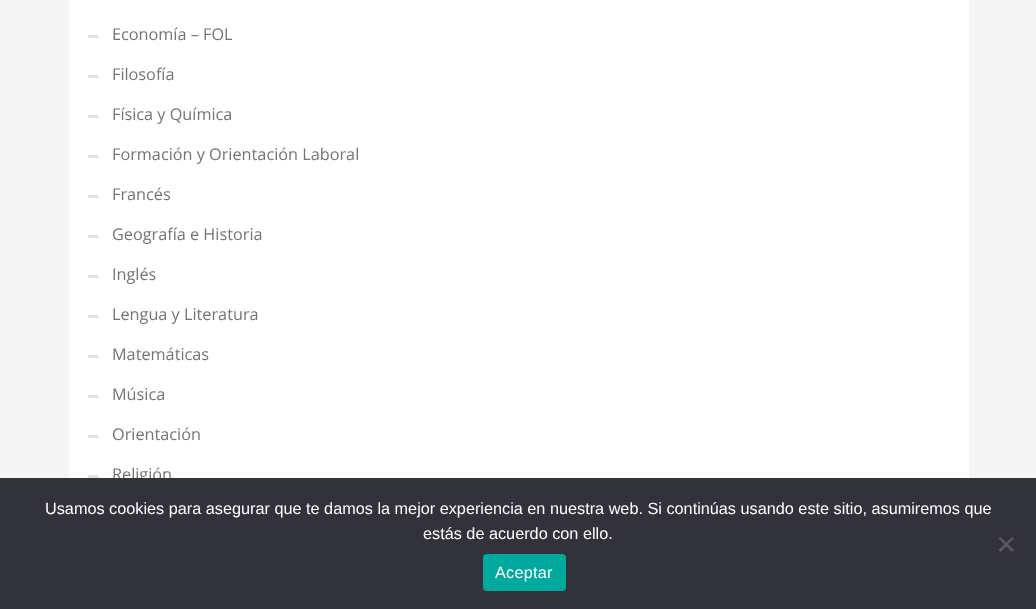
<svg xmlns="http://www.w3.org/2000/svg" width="1036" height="609">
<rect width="100%" height="100%" fill="#f5f5f5"/>
<rect x="69" width="900" height="478" fill="#fff"/>
<rect x="88" y="35" width="10" height="3" fill="#e1e1e1"/>
<text x="112" y="40" style="font-family:Open Sans;font-size:16.25px;fill:#747474">Economía – FOL</text>
<rect x="88" y="75" width="10" height="3" fill="#e1e1e1"/>
<text x="112" y="80" style="font-family:Open Sans;font-size:16.25px;fill:#747474">Filosofía</text>
<rect x="88" y="115" width="10" height="3" fill="#e1e1e1"/>
<text x="112" y="120" style="font-family:Open Sans;font-size:16.25px;fill:#747474">Física y Química</text>
<rect x="88" y="155" width="10" height="3" fill="#e1e1e1"/>
<text x="112" y="160" style="font-family:Open Sans;font-size:16.25px;fill:#747474">Formación y Orientación Laboral</text>
<rect x="88" y="195" width="10" height="3" fill="#e1e1e1"/>
<text x="112" y="200" style="font-family:Open Sans;font-size:16.25px;fill:#747474">Francés</text>
<rect x="88" y="235" width="10" height="3" fill="#e1e1e1"/>
<text x="112" y="240" style="font-family:Open Sans;font-size:16.25px;fill:#747474">Geografía e Historia</text>
<rect x="88" y="275" width="10" height="3" fill="#e1e1e1"/>
<text x="112" y="280" style="font-family:Open Sans;font-size:16.25px;fill:#747474">Inglés</text>
<rect x="88" y="315" width="10" height="3" fill="#e1e1e1"/>
<text x="112" y="320" style="font-family:Open Sans;font-size:16.25px;fill:#747474">Lengua y Literatura</text>
<rect x="88" y="355" width="10" height="3" fill="#e1e1e1"/>
<text x="112" y="360" style="font-family:Open Sans;font-size:16.25px;fill:#747474">Matemáticas</text>
<rect x="88" y="395" width="10" height="3" fill="#e1e1e1"/>
<text x="112" y="400" style="font-family:Open Sans;font-size:16.25px;fill:#747474">Música</text>
<rect x="88" y="435" width="10" height="3" fill="#e1e1e1"/>
<text x="112" y="440" style="font-family:Open Sans;font-size:16.25px;fill:#747474">Orientación</text>
<rect x="88" y="475" width="10" height="3" fill="#e1e1e1"/>
<text x="112" y="480" style="font-family:Open Sans;font-size:16.25px;fill:#747474">Religión</text>
<rect y="478" width="1036" height="131" fill="#32323a"/>
<text x="45" y="514" style="font-family:Liberation Sans;font-size:16.25px;fill:#fff">Usamos cookies para asegurar que te damos la mejor experiencia en nuestra web. Si continúas usando este sitio, asumiremos que</text>
<text x="423" y="539" style="font-family:Liberation Sans;font-size:16.25px;fill:#fff">estás de acuerdo con ello.</text>
<path d="M1012 537l2 1.5l-13.5 13.5l-2-2z" fill="#59595d"/>
<path d="M998.5 538.5l2-1.5l13.5 13l-2 2z" fill="#59595d"/>
<rect x="483" y="554" width="83" height="37" rx="4" fill="#00a99d"/>
<text x="495" y="578" style="font-family:Liberation Sans;font-size:16.25px;letter-spacing:0.25px;fill:#fff">Aceptar</text>
</svg>
